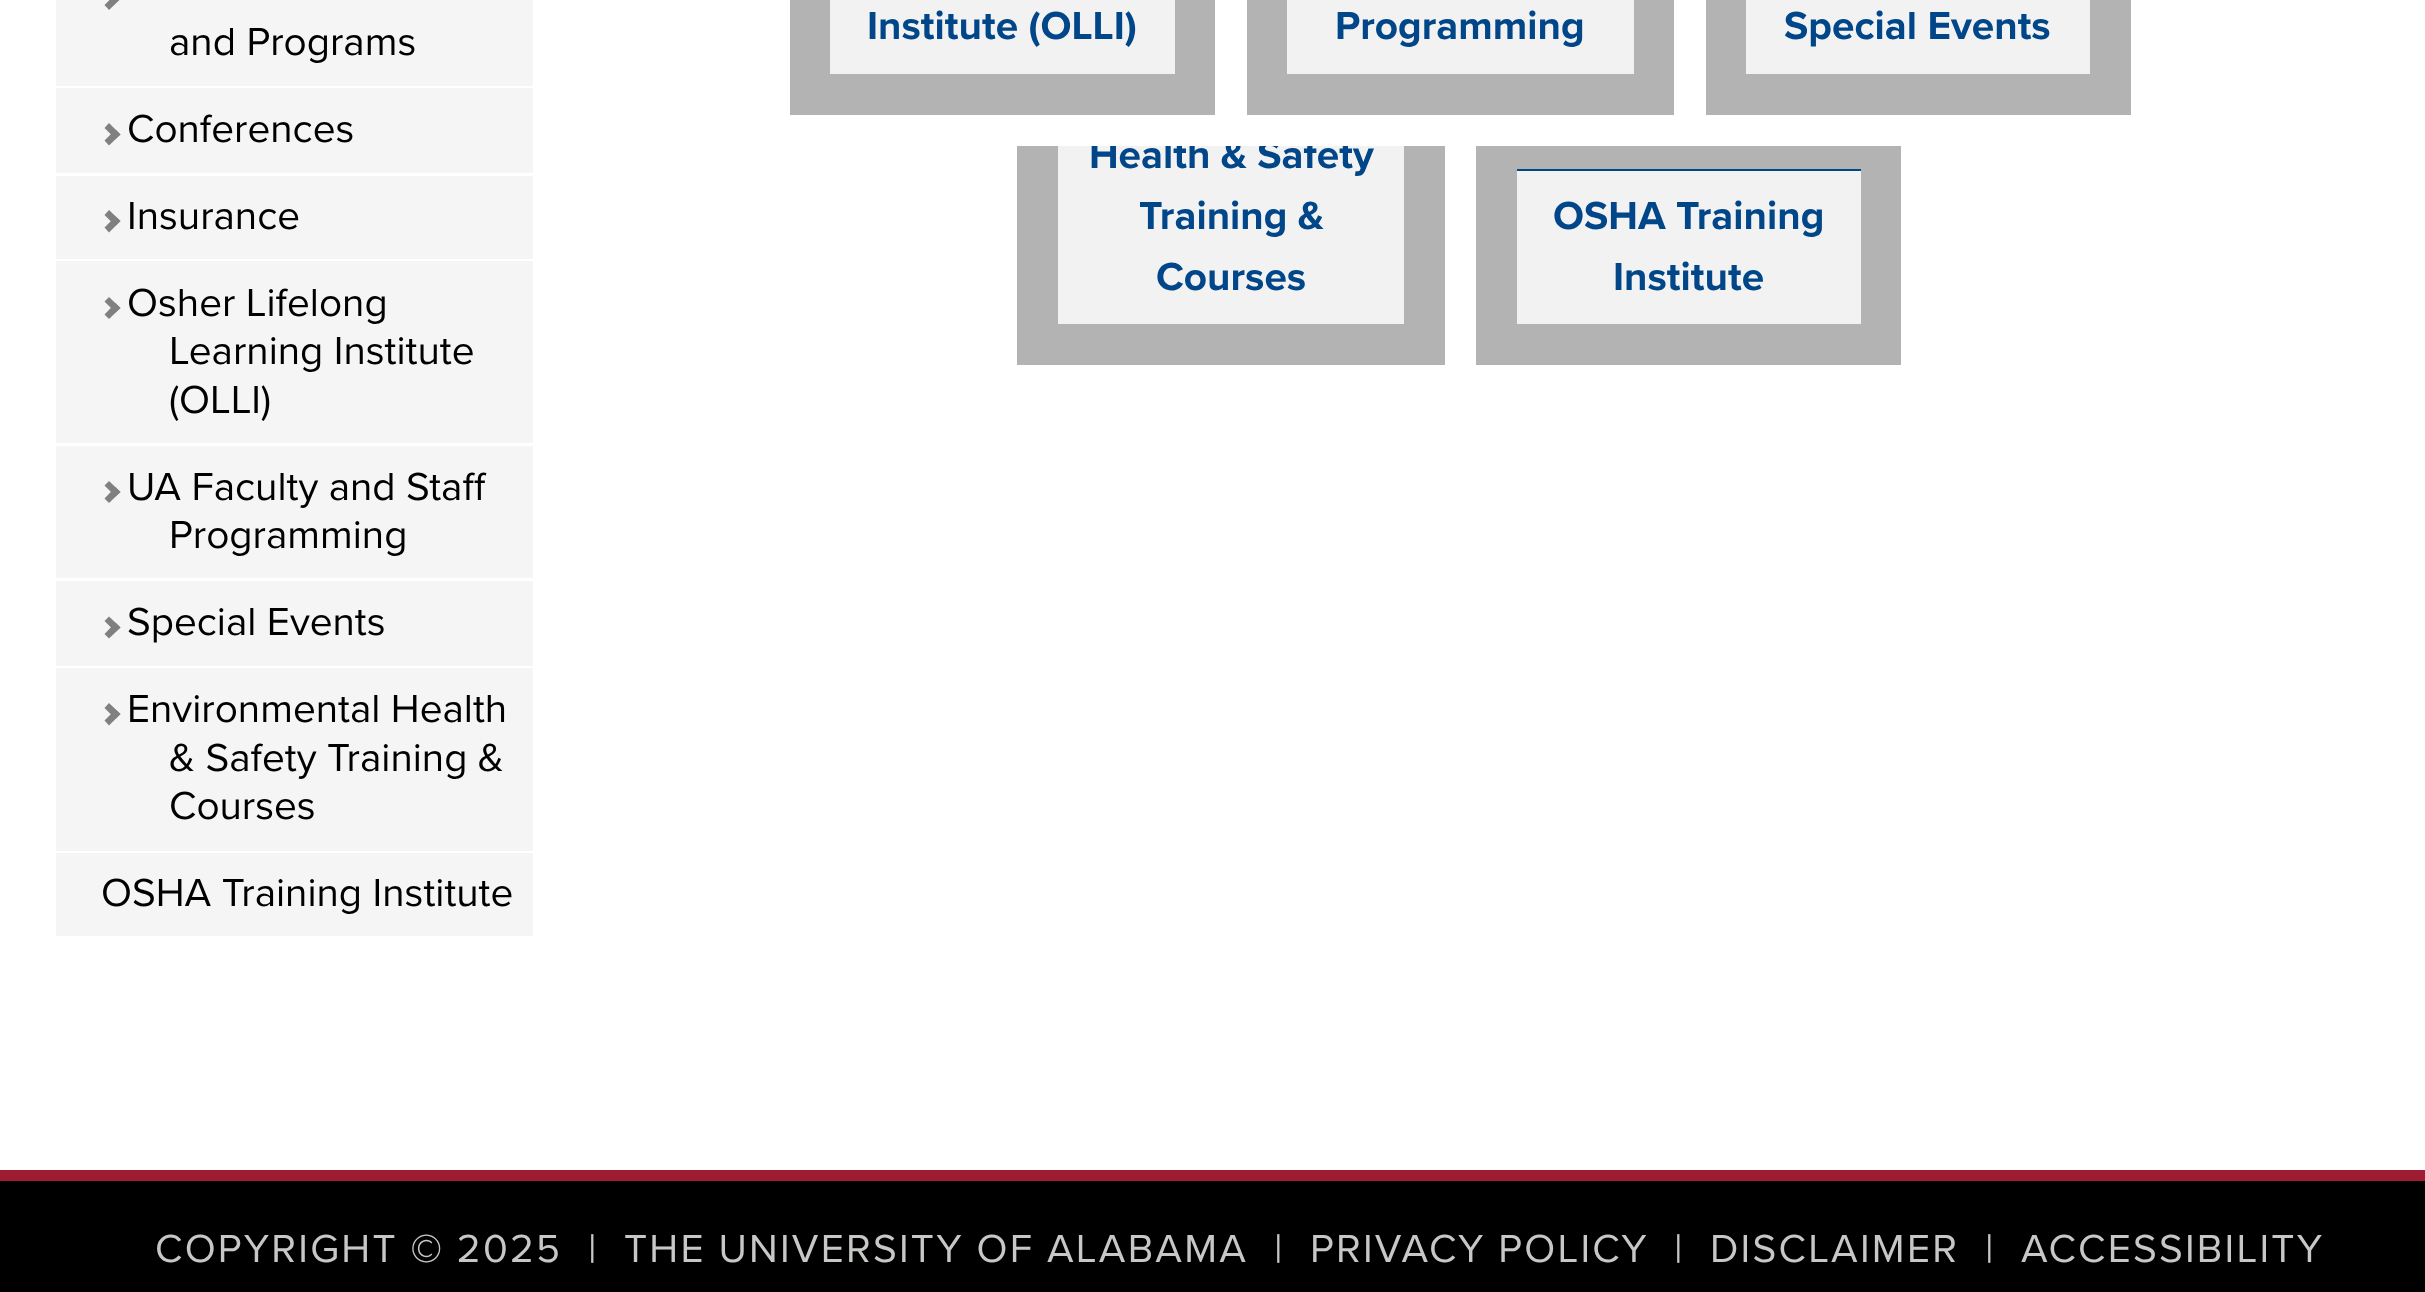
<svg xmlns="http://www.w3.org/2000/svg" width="2425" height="1292">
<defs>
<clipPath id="clip1"><rect x="1017" y="146" width="428" height="219"/></clipPath>
</defs>
<rect width="100%" height="100%" fill="#fff"/>
<rect x="56" width="477" height="86" fill="#f5f5f5"/>
<path d="M104.5 5l11-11l5 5l-11.5 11z" fill="#808080"/>
<text x="169" y="55" style="font-family:Proxima Nova;font-size:40.5px;fill:#000">and Programs</text>
<rect x="56" y="88" width="477" height="85" fill="#f5f5f5"/>
<path d="M104.5 128l4.5-5l11.5 11.5l-5 4.5z" fill="#808080"/>
<path d="M104.5 140.5l11-11l5 5l-11.5 11z" fill="#808080"/>
<text x="127" y="142" style="font-family:Proxima Nova;font-size:40.5px;fill:#000">Conferences</text>
<rect x="56" y="176" width="477" height="83" fill="#f5f5f5"/>
<path d="M104.5 215l4.5-5l11.5 11l-5 5z" fill="#808080"/>
<path d="M104.5 227.5l11-11l5 4.5l-11.5 11.5z" fill="#808080"/>
<text x="127" y="229" style="font-family:Proxima Nova;font-size:40.5px;fill:#000">Insurance</text>
<rect x="56" y="261" width="477" height="182" fill="#f5f5f5"/>
<path d="M104.5 301.5l4.5-4.5l11.5 11l-5 4.5z" fill="#808080"/>
<path d="M104.5 314.5l11-11.5l5 5l-11.5 11z" fill="#808080"/>
<text x="127" y="316" style="font-family:Proxima Nova;font-size:40.5px;fill:#000">Osher Lifelong</text>
<text x="169" y="364" style="font-family:Proxima Nova;font-size:40.5px;fill:#000">Learning Institute</text>
<text x="169" y="413" style="font-family:Proxima Nova;font-size:40.5px;fill:#000">(OLLI)</text>
<rect x="56" y="446" width="477" height="132" fill="#f5f5f5"/>
<path d="M104.5 485.5l4.5-4.5l11.5 11l-5 4.5z" fill="#808080"/>
<path d="M104.5 498.5l11-11.5l5 5l-11.5 11z" fill="#808080"/>
<text x="127" y="500" style="font-family:Proxima Nova;font-size:40.5px;fill:#000">UA Faculty and Staff</text>
<text x="169" y="548" style="font-family:Proxima Nova;font-size:40.5px;fill:#000">Programming</text>
<rect x="56" y="581" width="477" height="85" fill="#f5f5f5"/>
<path d="M104.5 621l4.5-4.5l11.5 11l-5 4.5z" fill="#808080"/>
<path d="M104.5 634l11-11.5l5 5l-11.5 11z" fill="#808080"/>
<text x="127" y="635" style="font-family:Proxima Nova;font-size:40.5px;fill:#000">Special Events</text>
<rect x="56" y="668" width="477" height="183" fill="#f5f5f5"/>
<path d="M104.5 708l4.5-5l11.5 11l-5 5z" fill="#808080"/>
<path d="M104.5 720.5l11-11l5 4.5l-11.5 11.5z" fill="#808080"/>
<text x="127" y="722" style="font-family:Proxima Nova;font-size:40.5px;fill:#000">Environmental Health</text>
<text x="169" y="771" style="font-family:Proxima Nova;font-size:40.5px;fill:#000">&amp; Safety Training &amp;</text>
<text x="169" y="819" style="font-family:Proxima Nova;font-size:40.5px;fill:#000">Courses</text>
<rect x="56" y="853" width="477" height="83" fill="#f5f5f5"/>
<text x="101" y="906" style="font-family:Proxima Nova;font-size:40.5px;fill:#000">OSHA Training Institute</text>
<rect x="790" width="425" height="115" fill="#b3b3b3"/>
<rect x="830" width="345" height="74" fill="#f2f2f2"/>
<text x="867" y="39" style="font-family:Proxima Nova;font-size:40.5px;font-weight:bold;fill:#004689">Institute (OLLI)</text>
<rect x="1247" width="427" height="115" fill="#b3b3b3"/>
<rect x="1287" width="347" height="74" fill="#f2f2f2"/>
<text x="1335" y="39" style="font-family:Proxima Nova;font-size:40.5px;font-weight:bold;fill:#004689">Programming</text>
<rect x="1706" width="425" height="115" fill="#b3b3b3"/>
<rect x="1746" width="344" height="74" fill="#f2f2f2"/>
<text x="1784" y="39" style="font-family:Proxima Nova;font-size:40.5px;font-weight:bold;fill:#004689">Special Events</text>
<rect x="1017" y="146" width="428" height="219" fill="#b3b3b3"/>
<rect x="1058" y="146" width="346" height="178" fill="#f2f2f2"/>
<g clip-path="url(#clip1)">
<text x="1089" y="168" style="font-family:Proxima Nova;font-size:40.5px;font-weight:bold;fill:#004689">Health &amp; Safety</text>
</g>
<text x="1139" y="229" style="font-family:Proxima Nova;font-size:40.5px;font-weight:bold;fill:#004689">Training &amp;</text>
<text x="1156" y="290" style="font-family:Proxima Nova;font-size:40.5px;font-weight:bold;fill:#004689">Courses</text>
<rect x="1476" y="146" width="425" height="219" fill="#b3b3b3"/>
<rect x="1517" y="171" width="344" height="153" fill="#f2f2f2"/>
<rect x="1517" y="169" width="344" height="2" fill="#004689"/>
<text x="1553" y="229" style="font-family:Proxima Nova;font-size:40.5px;font-weight:bold;fill:#004689">OSHA Training</text>
<text x="1613" y="290" style="font-family:Proxima Nova;font-size:40.5px;font-weight:bold;fill:#004689">Institute</text>
<rect y="1170" width="2425" height="11" fill="#9e1b32"/>
<rect y="1181" width="2425" height="111" fill="#000"/>
<text x="155" y="1262" style="font-family:Proxima Nova;font-size:40.5px;letter-spacing:2.25px;fill:#c6c8c6">COPYRIGHT © 2025</text>
<text x="588" y="1262" style="font-family:Proxima Nova;font-size:40.5px;letter-spacing:2.25px;fill:#c6c8c6">|</text>
<text x="624" y="1262" style="font-family:Proxima Nova;font-size:40.5px;letter-spacing:2.25px;fill:#c6c8c6">THE UNIVERSITY OF ALABAMA</text>
<text x="1274" y="1262" style="font-family:Proxima Nova;font-size:40.5px;letter-spacing:2.25px;fill:#c6c8c6">|</text>
<text x="1310" y="1262" style="font-family:Proxima Nova;font-size:40.5px;letter-spacing:2.25px;fill:#c6c8c6">PRIVACY POLICY</text>
<text x="1674" y="1262" style="font-family:Proxima Nova;font-size:40.5px;letter-spacing:2.25px;fill:#c6c8c6">|</text>
<text x="1710" y="1262" style="font-family:Proxima Nova;font-size:40.5px;letter-spacing:2.25px;fill:#c6c8c6">DISCLAIMER</text>
<text x="1985" y="1262" style="font-family:Proxima Nova;font-size:40.5px;letter-spacing:2.25px;fill:#c6c8c6">|</text>
<text x="2021" y="1262" style="font-family:Proxima Nova;font-size:40.5px;letter-spacing:2.25px;fill:#c6c8c6">ACCESSIBILITY</text>
</svg>
